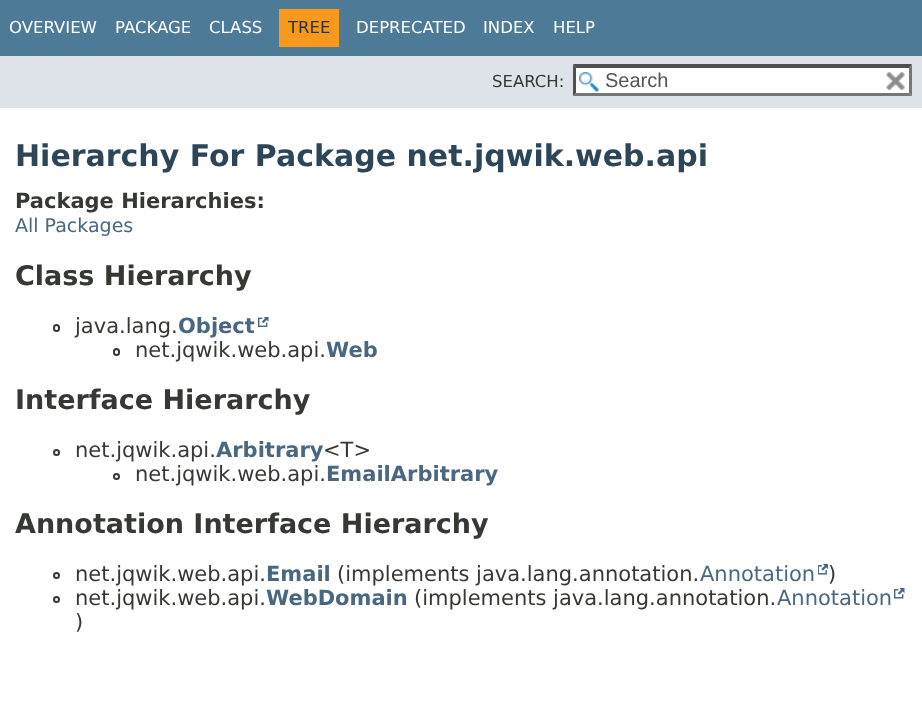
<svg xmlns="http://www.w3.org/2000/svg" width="922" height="712">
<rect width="100%" height="100%" fill="#fff"/>
<rect width="922" height="56" fill="#4d7a97"/>
<text x="9" y="33" style="font-family:DejaVu Sans;font-size:16.5px;fill:#fff">OVERVIEW</text>
<text x="115" y="33" style="font-family:DejaVu Sans;font-size:16.5px;fill:#fff">PACKAGE</text>
<text x="209" y="33" style="font-family:DejaVu Sans;font-size:16.5px;fill:#fff">CLASS</text>
<rect x="279" y="9" width="60" height="38" fill="#f8981d"/>
<text x="288" y="33" style="font-family:DejaVu Sans;font-size:16.5px;fill:#253441">TREE</text>
<text x="356" y="33" style="font-family:DejaVu Sans;font-size:16.5px;fill:#fff">DEPRECATED</text>
<text x="483" y="33" style="font-family:DejaVu Sans;font-size:16.5px;fill:#fff">INDEX</text>
<text x="553" y="33" style="font-family:DejaVu Sans;font-size:16.5px;fill:#fff">HELP</text>
<rect y="56" width="922" height="52" fill="#dee3e9"/>
<text x="492" y="87" style="font-family:DejaVu Sans;font-size:16.5px;fill:#353833">SEARCH:</text>
<rect x="573" y="65" width="339" height="31" fill="#fff"/>
<image x="579" y="72" width="20" height="20" href="media/1.png"/>
<path d="M573 64h339l-3 4h-333z" fill="#4f4f4f"/>
<path d="M912 64.5v31.5l-3-3v-25.5z" fill="#767676"/>
<path d="M912 96h-339l3-3h333z" fill="#767676"/>
<path d="M573 96v-31.5l3 3v25.5z" fill="#4f4f4f"/>
<text x="605" y="87" style="font-family:Liberation Sans;font-size:20px;fill:#545454">Search</text>
<image x="885" y="72" width="20" height="19" href="media/2.png"/>
<text x="15" y="166" style="font-family:DejaVu Sans;font-size:30px;font-weight:bold;fill:#2c4557">Hierarchy For Package net.jqwik.web.api</text>
<text x="15" y="208" style="font-family:DejaVu Sans;font-size:21px;font-weight:bold;fill:#353833">Package Hierarchies:</text>
<text x="15" y="232" style="font-family:DejaVu Sans;font-size:19px;fill:#4a6782">All Packages</text>
<text x="15" y="285" style="font-family:DejaVu Sans;font-size:27px;font-weight:bold;fill:#353833">Class Hierarchy</text>
<rect x="54" y="325" width="5" height="6" rx="2.5" fill="none" stroke="#353833" stroke-width="2"/>
<text x="75" y="333" style="font-family:DejaVu Sans;font-size:21px;fill:#353833">java.lang.</text>
<text x="178" y="333" style="font-family:DejaVu Sans;font-size:21px;font-weight:bold;fill:#4a6782">Object</text>
<image x="258" y="317" width="11" height="10" href="media/3.png"/>
<rect x="114" y="349" width="5" height="6" rx="2.5" fill="none" stroke="#353833" stroke-width="2"/>
<text x="135" y="357" style="font-family:DejaVu Sans;font-size:21px;fill:#353833">net.jqwik.web.api.</text>
<text x="326" y="357" style="font-family:DejaVu Sans;font-size:21px;font-weight:bold;fill:#4a6782">Web</text>
<text x="15" y="409" style="font-family:DejaVu Sans;font-size:27px;font-weight:bold;fill:#353833">Interface Hierarchy</text>
<circle cx="56.5" cy="452.5" r="2.5" fill="none" stroke="#353833" stroke-width="2"/>
<text x="75" y="457" style="font-family:DejaVu Sans;font-size:21px;fill:#353833">net.jqwik.api.</text>
<text x="216" y="457" style="font-family:DejaVu Sans;font-size:21px;font-weight:bold;fill:#4a6782">Arbitrary</text>
<text x="323" y="457" style="font-family:DejaVu Sans;font-size:21px;fill:#353833">&lt;T&gt;</text>
<circle cx="116.5" cy="476.5" r="2.5" fill="none" stroke="#353833" stroke-width="2"/>
<text x="135" y="481" style="font-family:DejaVu Sans;font-size:21px;fill:#353833">net.jqwik.web.api.</text>
<text x="326" y="481" style="font-family:DejaVu Sans;font-size:21px;font-weight:bold;fill:#4a6782">EmailArbitrary</text>
<text x="15" y="533" style="font-family:DejaVu Sans;font-size:27px;font-weight:bold;fill:#353833">Annotation Interface Hierarchy</text>
<circle cx="56.5" cy="575.5" r="2.5" fill="none" stroke="#353833" stroke-width="2"/>
<text x="75" y="581" style="font-family:DejaVu Sans;font-size:21px;fill:#353833">net.jqwik.web.api.</text>
<text x="266" y="581" style="font-family:DejaVu Sans;font-size:21px;font-weight:bold;fill:#4a6782">Email</text>
<text x="337" y="581" style="font-family:DejaVu Sans;font-size:21px;fill:#353833">(implements java.lang.annotation.</text>
<text x="700" y="581" style="font-family:DejaVu Sans;font-size:21px;fill:#4a6782">Annotation</text>
<image x="818" y="564" width="10" height="11" href="media/4.png"/>
<text x="828" y="581" style="font-family:DejaVu Sans;font-size:21px;fill:#353833">)</text>
<circle cx="56.5" cy="599.5" r="2.5" fill="none" stroke="#353833" stroke-width="2"/>
<text x="75" y="605" style="font-family:DejaVu Sans;font-size:21px;fill:#353833">net.jqwik.web.api.</text>
<text x="266" y="605" style="font-family:DejaVu Sans;font-size:21px;font-weight:bold;fill:#4a6782">WebDomain</text>
<text x="414" y="605" style="font-family:DejaVu Sans;font-size:21px;fill:#353833">(implements java.lang.annotation.</text>
<text x="777" y="605" style="font-family:DejaVu Sans;font-size:21px;fill:#4a6782">Annotation</text>
<image x="894" y="588" width="11" height="11" href="media/5.png"/>
<text x="75" y="629" style="font-family:DejaVu Sans;font-size:21px;fill:#353833">)</text>
</svg>
